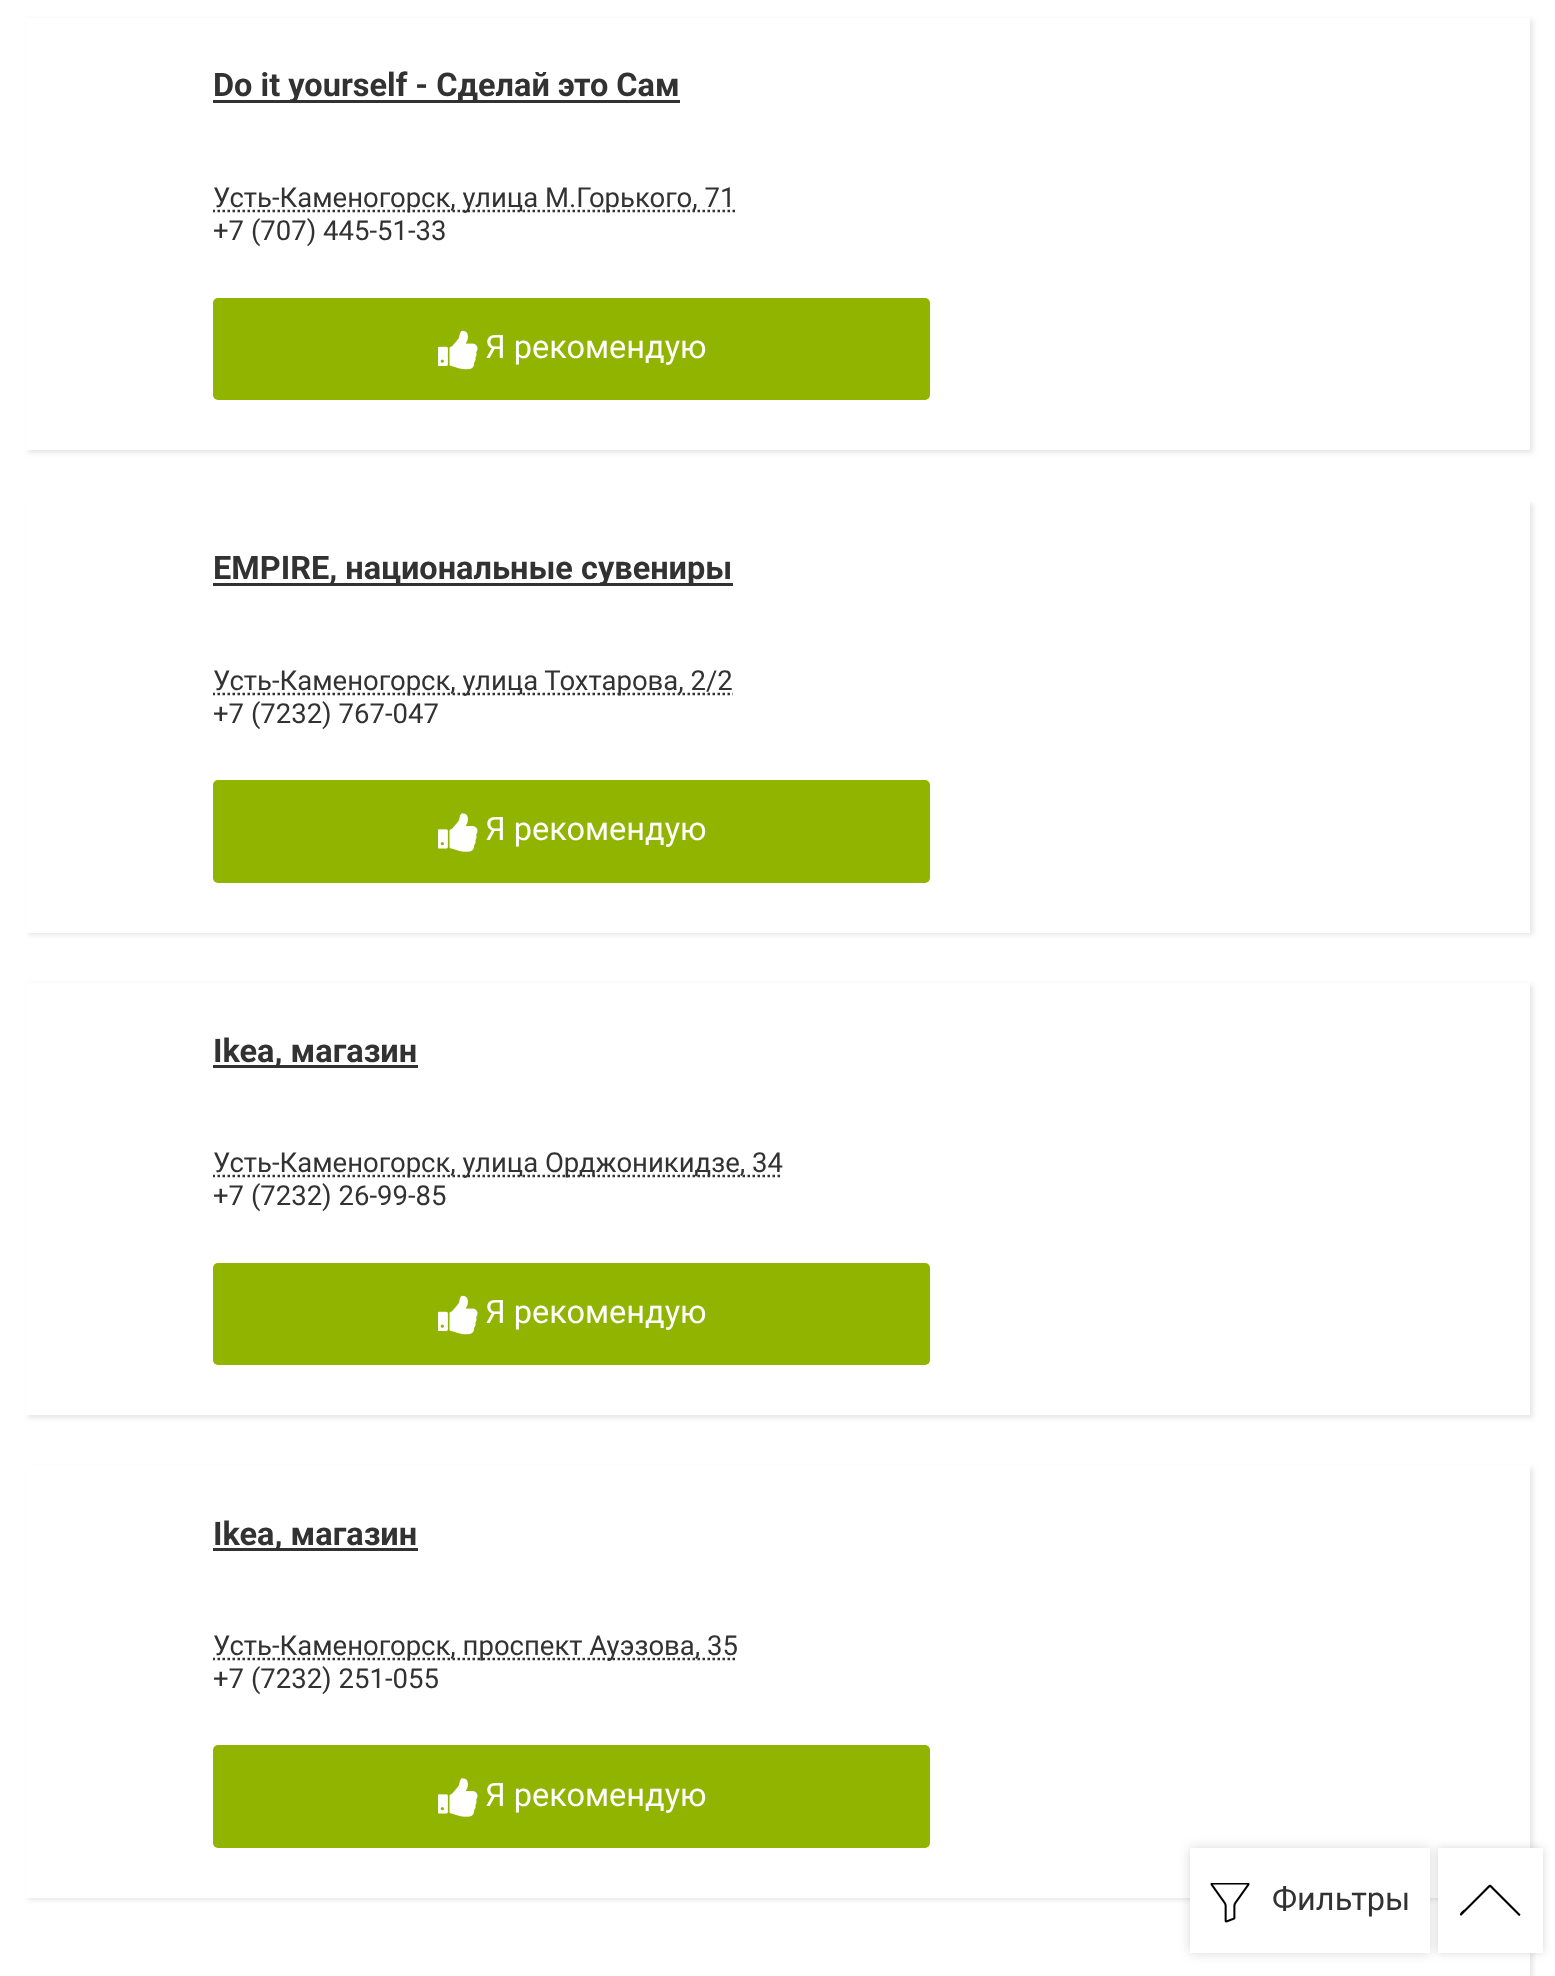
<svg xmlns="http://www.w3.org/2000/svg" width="1555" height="1976">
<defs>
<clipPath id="clip1"><path d="M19 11h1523v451h-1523zm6 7h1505v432h-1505z" clip-rule="evenodd"/></clipPath>
<clipPath id="clip2"><rect x="213" y="183" width="1267" height="32"/></clipPath>
<clipPath id="clip3"><rect x="213" y="665" width="1267" height="33"/></clipPath>
<clipPath id="clip4"><path d="M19 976h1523v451h-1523zm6 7h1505v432h-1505z" clip-rule="evenodd"/></clipPath>
<clipPath id="clip5"><rect x="213" y="1148" width="1267" height="32"/></clipPath>
<clipPath id="clip6"><rect x="213" y="1630" width="1267" height="33"/></clipPath>
<clipPath id="clip7"><rect x="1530" y="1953" width="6" height="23"/></clipPath>
</defs>
<rect width="100%" height="100%" fill="#fff"/>
<g clip-path="url(#clip1)">
<rect x="28" y="20" width="1505" height="433" fill="#5a5a5a26" filter="blur(2.5px)"/>
</g>
<rect x="213" y="100" width="467" height="3" fill="#323232"/>
<text x="213" y="96" style="font-family:Roboto;font-size:32.5px;font-weight:bold;fill:#323232">Do it yourself - Сделай это Сам</text>
<g clip-path="url(#clip2)">
<path d="M212.5 211h522.5" fill="none" stroke="#323232" stroke-width="2.5" stroke-dasharray="2.5 2.5"/>
</g>
<text x="213" y="207" style="font-family:Roboto;font-size:27.5px;fill:#323232">Усть-Каменогорск, улица М.Горького, 71</text>
<text x="213" y="240" style="font-family:Roboto;font-size:27.5px;fill:#323232">+7 (707) 445-51-33</text>
<rect x="213" y="298" width="717" height="102" rx="5" fill="#90b400"/>
<image x="438" y="330" width="40" height="40" href="media/1.png"/>
<text x="485" y="358" style="font-family:Roboto;font-size:32.5px;fill:#fff">Я рекомендую</text>
<rect x="28" y="503" width="1505" height="432" fill="#5a5a5a26" filter="blur(2.5px)"/>
<rect x="25" y="500" width="1505" height="433" fill="#fff"/>
<rect x="213" y="583" width="520" height="3" fill="#323232"/>
<text x="213" y="579" style="font-family:Roboto;font-size:32.5px;font-weight:bold;fill:#323232">EMPIRE, национальные сувениры</text>
<g clip-path="url(#clip3)">
<path d="M212.5 694h520.5" fill="none" stroke="#323232" stroke-width="2.5" stroke-dasharray="2.5 2.5"/>
</g>
<text x="213" y="690" style="font-family:Roboto;font-size:27.5px;fill:#323232">Усть-Каменогорск, улица Тохтарова, 2/2</text>
<text x="213" y="723" style="font-family:Roboto;font-size:27.5px;fill:#323232">+7 (7232) 767-047</text>
<rect x="213" y="780" width="717" height="103" rx="5" fill="#90b400"/>
<image x="438" y="813" width="40" height="39" href="media/2.png"/>
<text x="485" y="840" style="font-family:Roboto;font-size:32.5px;fill:#fff">Я рекомендую</text>
<g clip-path="url(#clip4)">
<rect x="28" y="985" width="1505" height="433" fill="#5a5a5a26" filter="blur(2.5px)"/>
</g>
<rect x="213" y="1065" width="205" height="3" fill="#323232"/>
<text x="213" y="1062" style="font-family:Roboto;font-size:32.5px;font-weight:bold;fill:#323232">Ikea, магазин</text>
<g clip-path="url(#clip5)">
<path d="M212.5 1176h570" fill="none" stroke="#323232" stroke-width="2.5" stroke-dasharray="2.5 2.5"/>
</g>
<text x="213" y="1172" style="font-family:Roboto;font-size:27.5px;fill:#323232">Усть-Каменогорск, улица Орджоникидзе, 34</text>
<text x="213" y="1205" style="font-family:Roboto;font-size:27.5px;fill:#323232">+7 (7232) 26-99-85</text>
<rect x="213" y="1263" width="717" height="102" rx="5" fill="#90b400"/>
<image x="438" y="1295" width="40" height="40" href="media/1.png"/>
<text x="485" y="1323" style="font-family:Roboto;font-size:32.5px;fill:#fff">Я рекомендую</text>
<rect x="28" y="1468" width="1505" height="432" fill="#5a5a5a26" filter="blur(2.5px)"/>
<rect x="25" y="1465" width="1505" height="433" fill="#fff"/>
<rect x="213" y="1548" width="205" height="3" fill="#323232"/>
<text x="213" y="1545" style="font-family:Roboto;font-size:32.5px;font-weight:bold;fill:#323232">Ikea, магазин</text>
<g clip-path="url(#clip6)">
<path d="M212.5 1659h525" fill="none" stroke="#323232" stroke-width="2.5" stroke-dasharray="2.5 2.5"/>
</g>
<text x="213" y="1655" style="font-family:Roboto;font-size:27.5px;fill:#323232">Усть-Каменогорск, проспект Ауэзова, 35</text>
<text x="213" y="1688" style="font-family:Roboto;font-size:27.5px;fill:#323232">+7 (7232) 251-055</text>
<rect x="213" y="1745" width="717" height="103" rx="5" fill="#90b400"/>
<image x="438" y="1778" width="40" height="39" href="media/2.png"/>
<text x="485" y="1806" style="font-family:Roboto;font-size:32.5px;fill:#fff">Я рекомендую</text>
<g clip-path="url(#clip7)">
<rect x="28" y="1950" width="1505" height="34" fill="#5a5a5a26" filter="blur(2.5px)"/>
</g>
<rect x="1190" y="1848" width="240" height="105" fill="#63636340" filter="blur(6px)"/>
<rect x="1190" y="1848" width="240" height="105" fill="#fff"/>
<image x="1210" y="1883" width="40" height="40" href="media/3.png"/>
<text x="1272" y="1910" style="font-family:Roboto;font-size:32.5px;fill:#323232">Фильтры</text>
<rect x="1438" y="1848" width="105" height="105" fill="#63636340" filter="blur(4px)"/>
<rect x="1438" y="1848" width="105" height="105" fill="#fff"/>
<path d="M1520 1914l-24-24c-7-7-5-7-12 0l-19 19c0 0-6 4-5 6c1 1 1 1 2 0l28-28l29 29c1 0 2-2 1-2z" fill="#000"/>
</svg>
